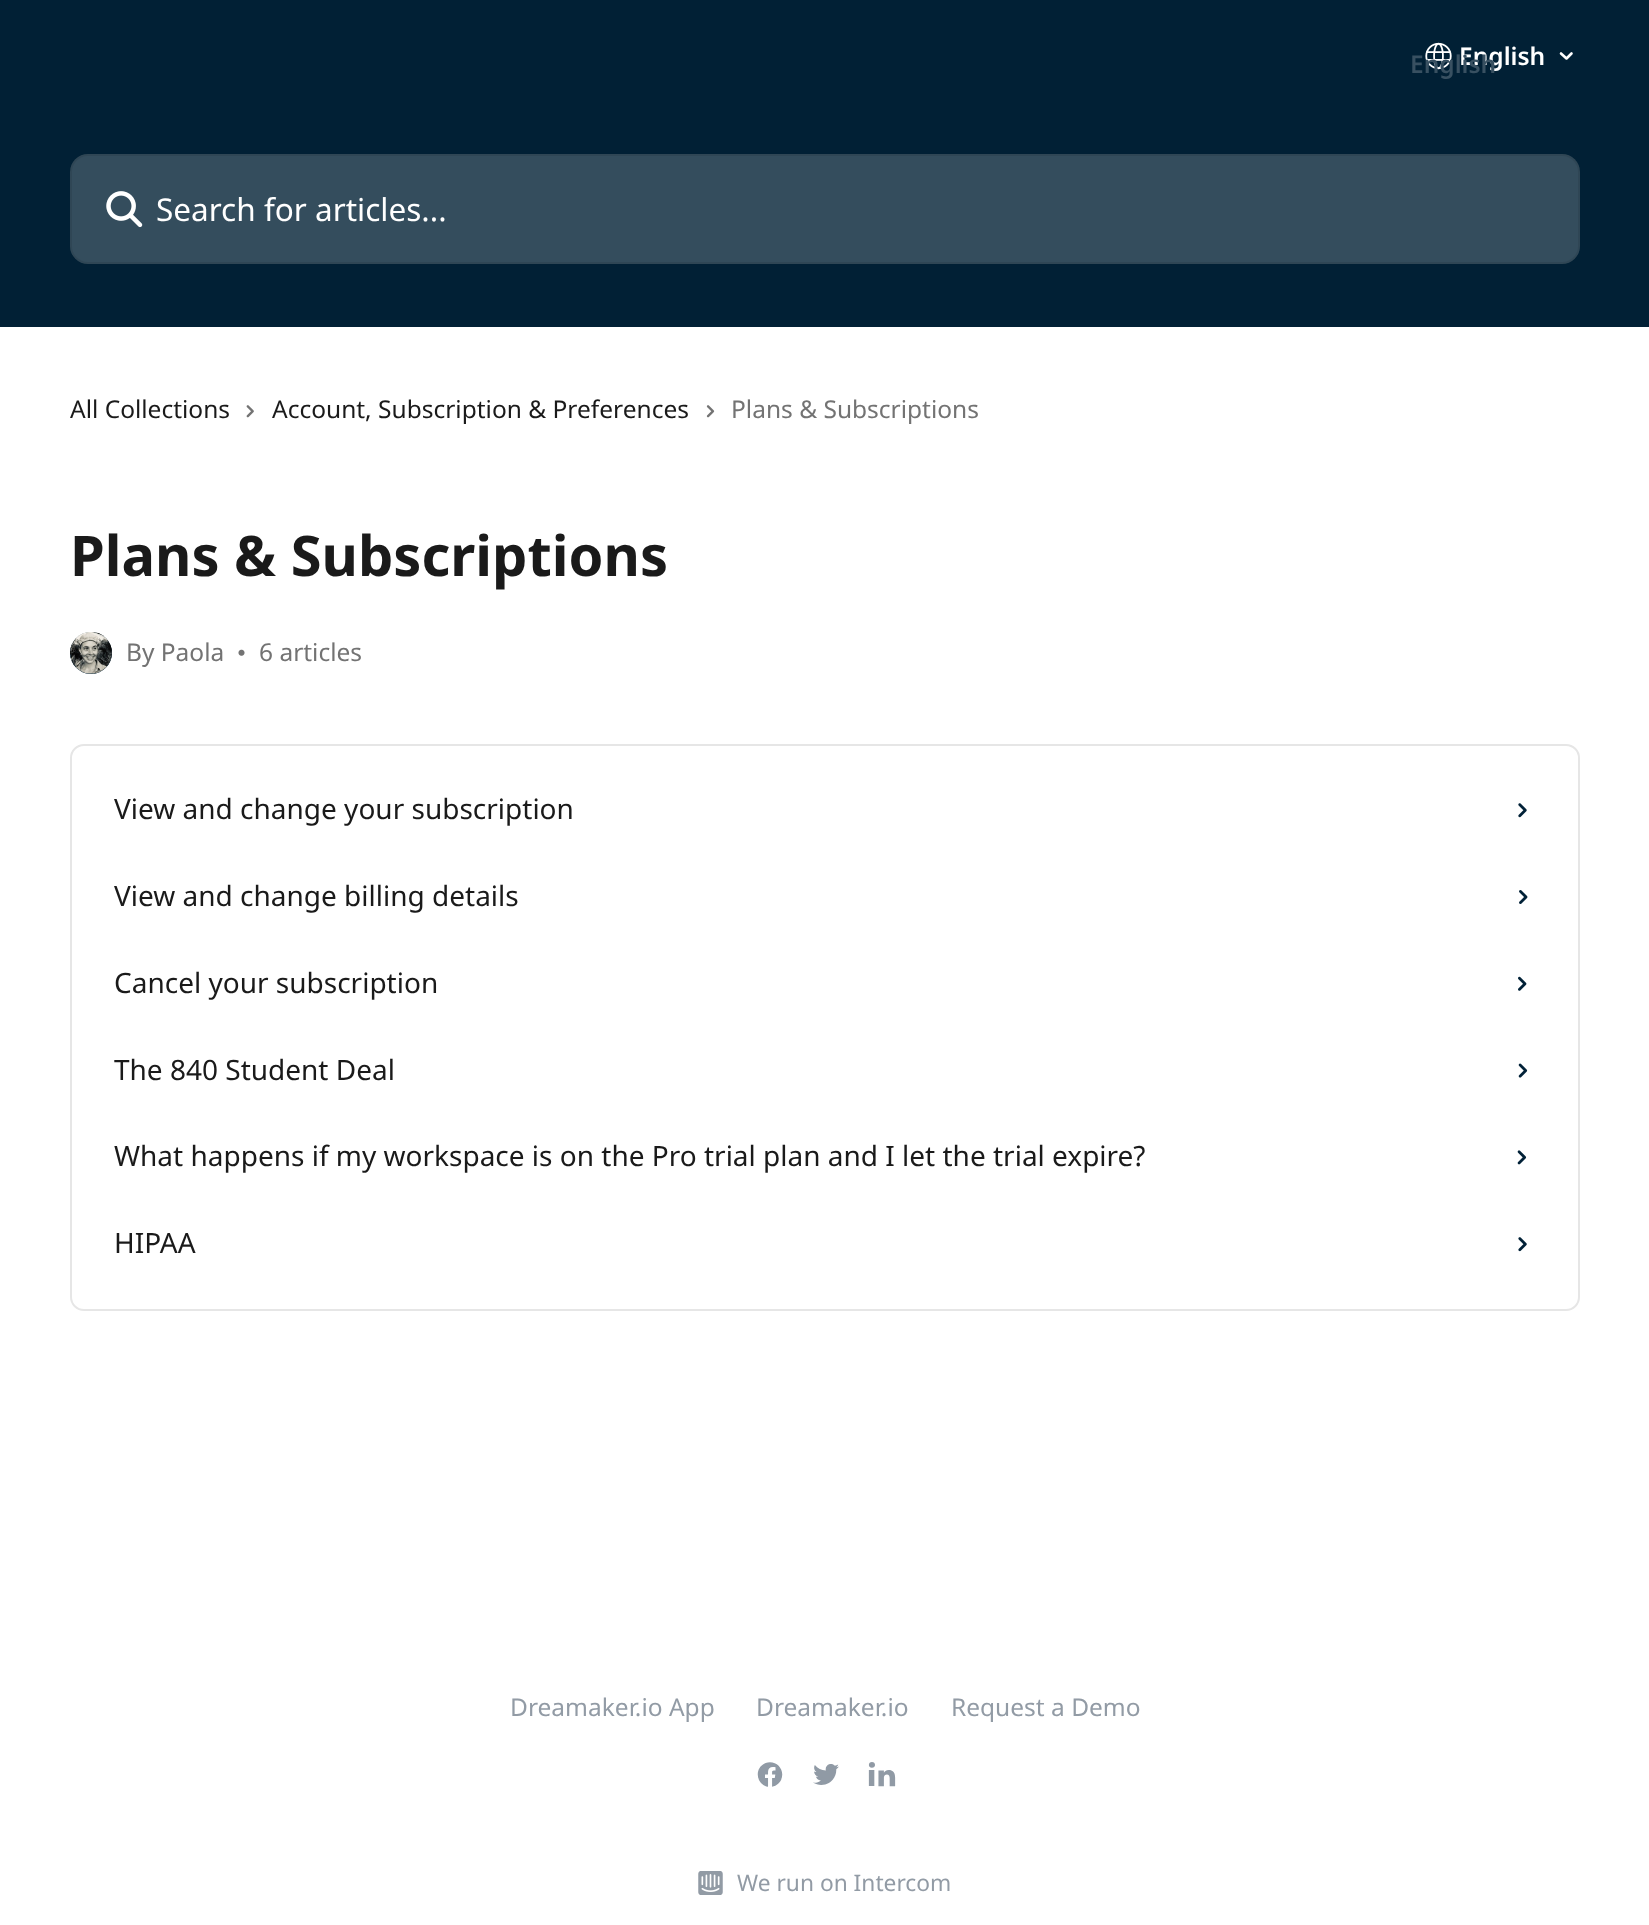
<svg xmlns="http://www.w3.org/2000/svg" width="1649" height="1925">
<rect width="100%" height="100%" fill="#fff"/>
<rect width="1649" height="327" fill="#012035"/>
<image x="1425" y="42" width="27" height="28" href="media/1.png"/>
<text x="1459" y="65" style="font-family:Noto Sans;font-size:24.5px;font-weight:600;fill:#fff">English</text>
<text x="1410" y="73" style="font-family:Noto Sans;font-size:24.5px;font-weight:600;fill:#385061">English</text>
<path d="M1561 53.5l5.5 5l5-5" fill="none" stroke="#fff" stroke-width="2.6" stroke-linecap="round" stroke-linejoin="round"/>
<rect x="70" y="154" width="1510" height="110" rx="18" fill="#344d5d"/>
<rect x="71" y="155" width="1508" height="108" rx="17" fill="none" stroke="#00000014" stroke-width="2"/>
<image x="106" y="191" width="37" height="37" href="media/2.png"/>
<text x="156" y="221" style="font-family:Noto Sans;font-size:31.5px;fill:#fff">Search for articles...</text>
<text x="70" y="418" style="font-family:Noto Sans;font-size:24.5px;fill:#1a1a1a">All Collections</text>
<image x="246" y="405" width="8" height="13" href="media/3.png"/>
<text x="272" y="418" style="font-family:Noto Sans;font-size:24.5px;fill:#1a1a1a">Account, Subscription &amp; Preferences</text>
<image x="706" y="405" width="9" height="13" href="media/4.png"/>
<text x="731" y="418" style="font-family:Noto Sans;font-size:24.5px;fill:#737373">Plans &amp; Subscriptions</text>
<text x="70" y="576" style="font-family:Noto Sans;font-size:56px;font-weight:bold;fill:#1a1a1a">Plans &amp; Subscriptions</text>
<circle cx="91" cy="653" r="21" fill="#012137"/>
<image x="70" y="632" width="42" height="42" href="media/5.png"/>
<text x="126" y="661" style="font-family:Noto Sans;font-size:24.5px;fill:#737373">By Paola</text>
<image x="238" y="649" width="7" height="7" href="media/6.png"/>
<text x="259" y="661" style="font-family:Noto Sans;font-size:24.5px;fill:#737373">6 articles</text>
<rect x="71" y="745" width="1508" height="565" rx="13" fill="none" stroke="#e6e6e6" stroke-width="2"/>
<text x="114" y="819" style="font-family:Noto Sans;font-size:28px;fill:#1a1a1a">View and change your subscription</text>
<image x="1518" y="803" width="9" height="15" href="media/7.png"/>
<text x="114" y="906" style="font-family:Noto Sans;font-size:28px;fill:#1a1a1a">View and change billing details</text>
<image x="1519" y="890" width="9" height="14" href="media/8.png"/>
<text x="114" y="993" style="font-family:Noto Sans;font-size:28px;fill:#1a1a1a">Cancel your subscription</text>
<image x="1518" y="976" width="9" height="15" href="media/9.png"/>
<text x="114" y="1080" style="font-family:Noto Sans;font-size:28px;fill:#1a1a1a">The 840 Student Deal</text>
<image x="1518" y="1063" width="10" height="15" href="media/10.png"/>
<text x="114" y="1166" style="font-family:Noto Sans;font-size:28px;fill:#1a1a1a">What happens if my workspace is on the Pro trial plan and I let the trial expire?</text>
<image x="1517" y="1150" width="10" height="15" href="media/11.png"/>
<text x="114" y="1253" style="font-family:Noto Sans;font-size:28px;fill:#1a1a1a">HIPAA</text>
<image x="1518" y="1237" width="9" height="15" href="media/12.png"/>
<text x="510" y="1716" style="font-family:Noto Sans;font-size:24.5px;fill:#929ba5">Dreamaker.io App</text>
<text x="756" y="1716" style="font-family:Noto Sans;font-size:24.5px;fill:#929ba5">Dreamaker.io</text>
<text x="951" y="1716" style="font-family:Noto Sans;font-size:24.5px;fill:#929ba5">Request a Demo</text>
<image x="757" y="1762" width="26" height="25" href="media/13.png"/>
<image x="813" y="1764" width="26" height="21" href="media/14.png"/>
<image x="868" y="1762" width="28" height="25" href="media/15.png"/>
<image x="698" y="1871" width="25" height="24" href="media/16.png"/>
<text x="737" y="1891" style="font-family:Noto Sans;font-size:22.75px;fill:#929ba5">We run on Intercom</text>
</svg>
